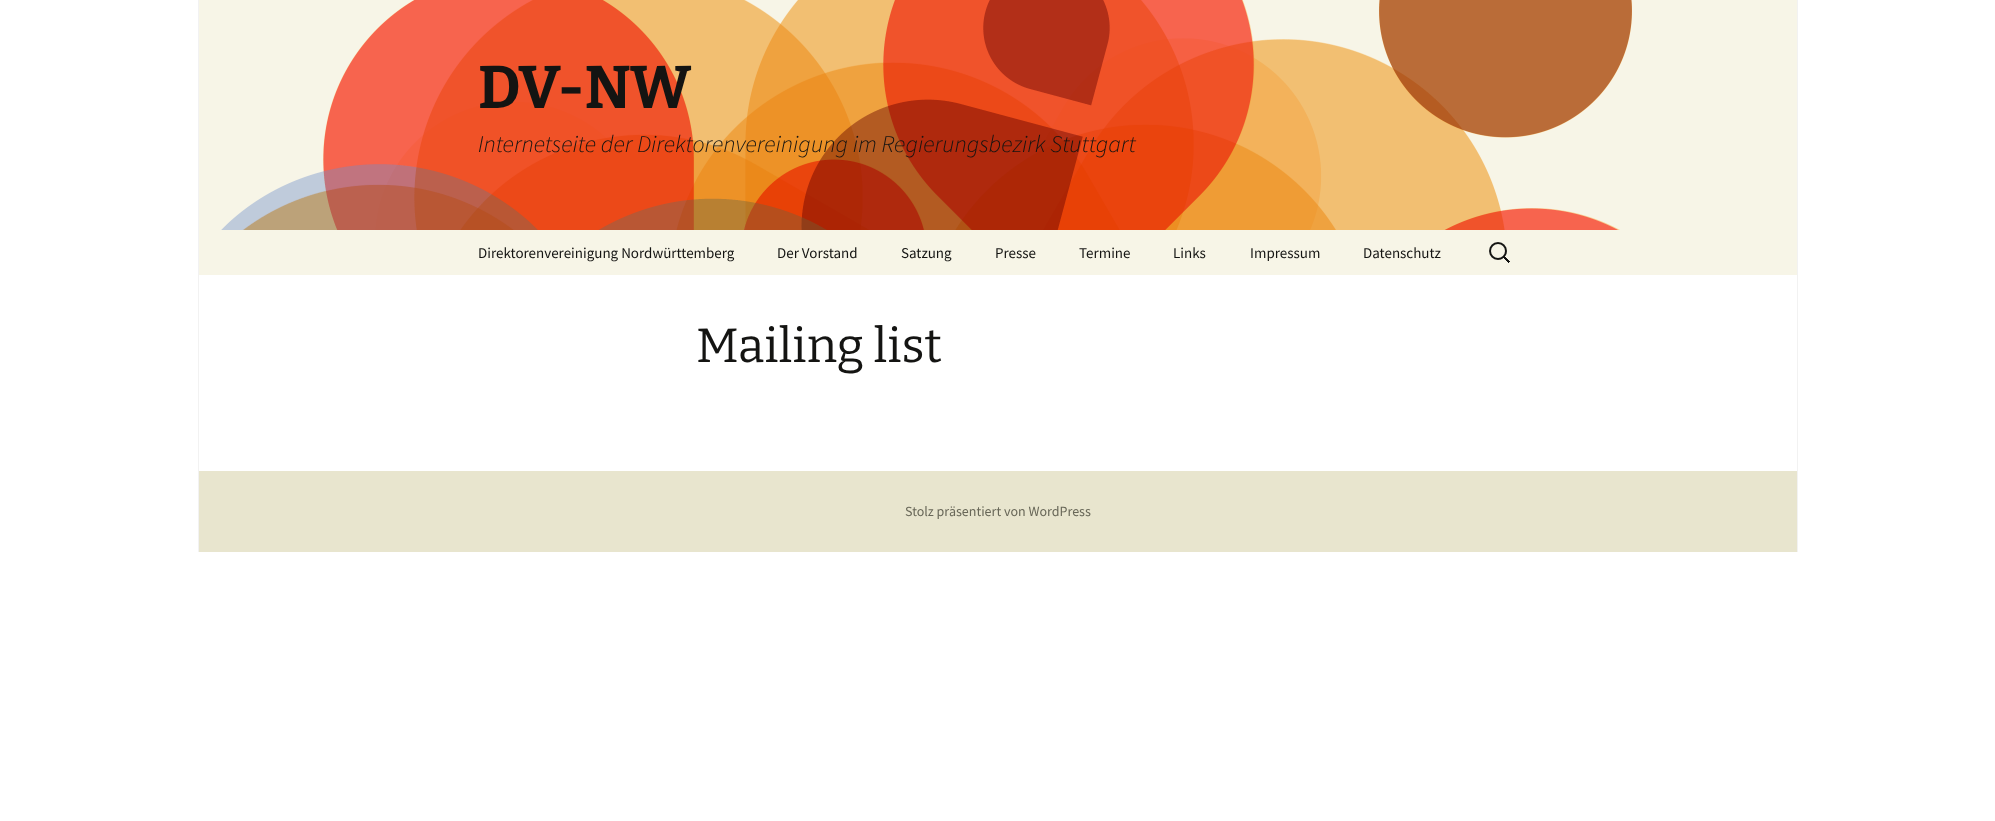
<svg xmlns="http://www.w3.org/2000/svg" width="1995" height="821">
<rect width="100%" height="100%" fill="#fff"/>
<rect x="1797" width="1" height="552" fill="#f2f2f2"/>
<rect x="198" width="1" height="552" fill="#f2f2f2"/>
<image x="199" y="0" width="1598" height="230" href="media/1.png"/>
<text x="478" y="108" style="font-family:Bitter;font-size:60px;font-weight:bold;fill:#141412">DV-NW</text>
<text x="478" y="152" style="font-family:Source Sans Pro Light;font-size:24px;font-weight:300;font-style:italic;fill:#141412">Internetseite der Direktorenvereinigung im Regierungsbezirk Stuttgart</text>
<rect x="199" y="230" width="1598" height="45" fill="#f7f5e7"/>
<text x="478" y="258" style="font-family:Source Sans Pro;font-size:15px;fill:#141412">Direktorenvereinigung Nordwürttemberg</text>
<text x="777" y="258" style="font-family:Source Sans Pro;font-size:15px;fill:#141412">Der Vorstand</text>
<text x="901" y="258" style="font-family:Source Sans Pro;font-size:15px;fill:#141412">Satzung</text>
<text x="995" y="258" style="font-family:Source Sans Pro;font-size:15px;fill:#141412">Presse</text>
<text x="1079" y="258" style="font-family:Source Sans Pro;font-size:15px;fill:#141412">Termine</text>
<text x="1173" y="258" style="font-family:Source Sans Pro;font-size:15px;fill:#141412">Links</text>
<text x="1250" y="258" style="font-family:Source Sans Pro;font-size:15px;fill:#141412">Impressum</text>
<text x="1363" y="258" style="font-family:Source Sans Pro;font-size:15px;fill:#141412">Datenschutz</text>
<image x="1489" y="242" width="21" height="21" href="media/2.png"/>
<text x="696" y="362" style="font-family:Bitter;font-size:48px;fill:#141412">Mailing list</text>
<rect x="199" y="471" width="1598" height="81" fill="#e8e5ce"/>
<text x="905" y="516" style="font-family:Source Sans Pro;font-size:14px;fill:#686758">Stolz präsentiert von WordPress</text>
</svg>
